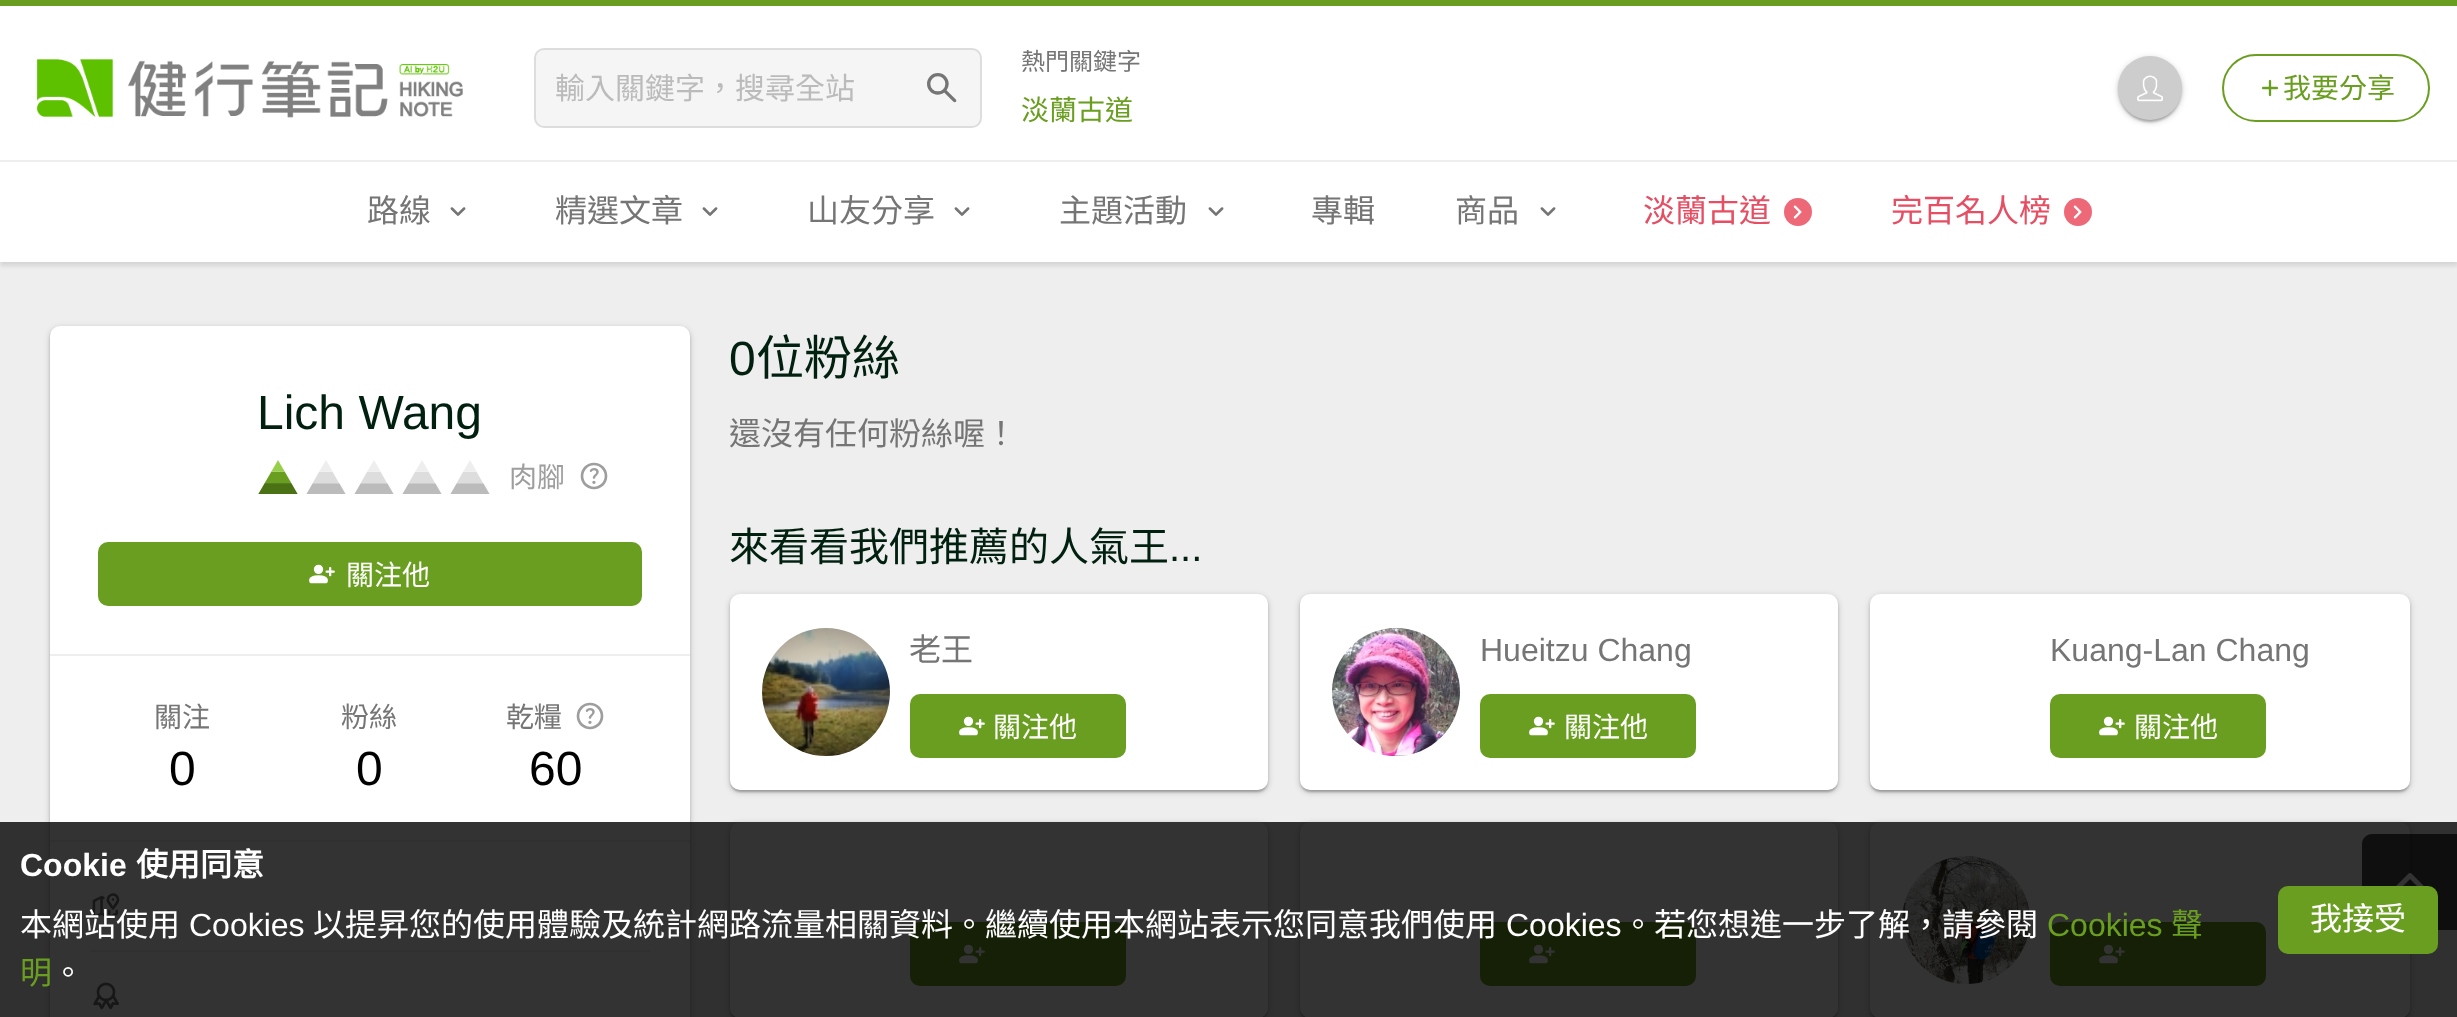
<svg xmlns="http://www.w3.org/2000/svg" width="2457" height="1017">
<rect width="100%" height="100%" fill="#eee"/>
<rect y="4" width="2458" height="262" fill="#0000001a" filter="blur(2px)"/>
<rect y="6" width="2457" height="256" fill="#fff"/>
<rect width="2457" height="6" fill="#6a9e20"/>
<image x="37" y="59" width="426" height="59" href="media/1.png"/>
<rect x="535" y="49" width="446" height="78" rx="9" fill="#f5f5f5" stroke="#ddd" stroke-width="2"/>
<text x="555" y="99" style="font-family:Noto Sans CJK TC;font-size:30px;fill:#bbb">輸入關鍵字，搜尋全站</text>
<image x="927" y="73" width="30" height="30" href="media/2.png"/>
<text x="1021" y="70" style="font-family:Noto Sans CJK TC;font-size:24px;fill:#757575">熱門關鍵字</text>
<text x="1021" y="120" style="font-family:Noto Sans CJK TC;font-size:28px;fill:#6a9e20">淡蘭古道</text>
<rect x="2118" y="58" width="64" height="64" rx="32" fill="#00000033" filter="blur(3px)"/>
<rect x="2120" y="62" width="60" height="60" rx="30" fill="#0000001f" filter="blur(1px)"/>
<rect x="2118" y="58" width="64" height="64" rx="32" fill="#00000024" filter="blur(1px)"/>
<image x="2118" y="56" width="64" height="64" href="media/3.png"/>
<rect x="2223" y="55" width="206" height="66" rx="33" fill="none" stroke="#6a9e20" stroke-width="2"/>
<image x="2261" y="79" width="18" height="18" href="media/4.png"/>
<text x="2283" y="98" style="font-family:Noto Sans CJK TC;font-size:28px;fill:#6a9e20">我要分享</text>
<rect y="160" width="2457" height="2" fill="#eee"/>
<text x="367" y="222" style="font-family:Noto Sans CJK TC;font-size:32px;fill:#757575">路線</text>
<image x="450" y="207" width="16" height="9" href="media/5.png"/>
<text x="555" y="222" style="font-family:Noto Sans CJK TC;font-size:32px;fill:#757575">精選文章</text>
<image x="702" y="207" width="16" height="9" href="media/5.png"/>
<text x="807" y="222" style="font-family:Noto Sans CJK TC;font-size:32px;fill:#757575">山友分享</text>
<image x="954" y="207" width="16" height="9" href="media/5.png"/>
<text x="1059" y="222" style="font-family:Noto Sans CJK TC;font-size:32px;fill:#757575">主題活動</text>
<image x="1208" y="207" width="16" height="9" href="media/5.png"/>
<text x="1311" y="222" style="font-family:Noto Sans CJK TC;font-size:32px;fill:#757575">專輯</text>
<text x="1455" y="222" style="font-family:Noto Sans CJK TC;font-size:32px;fill:#757575">商品</text>
<image x="1540" y="207" width="16" height="9" href="media/5.png"/>
<text x="1643" y="222" style="font-family:Noto Sans CJK TC;font-size:32px;fill:#e54e63">淡蘭古道</text>
<circle cx="1798" cy="212" r="14" fill="#ed6978"/>
<image x="1793" y="205" width="9" height="14" href="media/6.png"/>
<text x="1891" y="222" style="font-family:Noto Sans CJK TC;font-size:32px;fill:#e54e63">完百名人榜</text>
<circle cx="2078" cy="212" r="14" fill="#ed6978"/>
<image x="2073" y="205" width="9" height="14" href="media/6.png"/>
<rect x="50" y="328" width="640" height="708" rx="10" fill="#00000033" filter="blur(3px)"/>
<rect x="50" y="328" width="640" height="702" rx="10" fill="#00000024" filter="blur(1px)"/>
<rect x="50" y="326" width="640" height="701" rx="10" fill="#fff"/>
<text x="257" y="429" style="font-family:Liberation Sans;font-size:48px;fill:#01200f">Lich Wang</text>
<image x="258" y="460" width="40" height="34" href="media/7.png"/>
<image x="306" y="460" width="40" height="34" href="media/8.png"/>
<image x="354" y="460" width="40" height="34" href="media/8.png"/>
<image x="402" y="460" width="40" height="34" href="media/8.png"/>
<image x="450" y="460" width="40" height="34" href="media/8.png"/>
<text x="509" y="487" style="font-family:Noto Sans CJK TC;font-size:28px;fill:#9e9e9e">肉腳</text>
<image x="580" y="462" width="28" height="28" href="media/9.png"/>
<rect x="98" y="542" width="544" height="64" rx="10" fill="#6a9e20"/>
<image x="309" y="564" width="26" height="20" href="media/10.png"/>
<text x="346" y="585" style="font-family:Noto Sans CJK TC;font-size:28px;fill:#fff">關注他</text>
<rect x="50" y="654" width="640" height="2" fill="#eee"/>
<text x="154" y="727" style="font-family:Noto Sans CJK TC;font-size:28px;fill:#757575">關注</text>
<text x="169" y="785" style="font-family:Liberation Sans;font-size:48px;fill:#000">0</text>
<text x="341" y="727" style="font-family:Noto Sans CJK TC;font-size:28px;fill:#757575">粉絲</text>
<text x="356" y="785" style="font-family:Liberation Sans;font-size:48px;fill:#000">0</text>
<text x="506" y="727" style="font-family:Noto Sans CJK TC;font-size:28px;fill:#757575">乾糧</text>
<image x="576" y="702" width="28" height="28" href="media/11.png"/>
<text x="529" y="785" style="font-family:Liberation Sans;font-size:48px;fill:#000">60</text>
<rect x="50" y="840" width="640" height="2" fill="#eee"/>
<image x="92" y="893" width="28" height="26" href="media/12.png"/>
<rect x="90" y="950" width="560" height="2" fill="#eee"/>
<image x="93" y="982" width="26" height="28" href="media/13.png"/>
<text x="729" y="375" style="font-family:Liberation Sans;font-size:48px;fill:#01200f">0</text>
<text x="756" y="375" style="font-family:Noto Sans CJK TC;font-size:48px;fill:#01200f">位粉絲</text>
<text x="729" y="445" style="font-family:Noto Sans CJK TC;font-size:32px;fill:#757575">還沒有任何粉絲喔！</text>
<text x="729" y="561" style="font-family:Noto Sans CJK TC;font-size:40px;fill:#01200f">來看看我們推薦的人氣王</text>
<text x="1169" y="561" style="font-family:Liberation Sans;font-size:40px;fill:#01200f">...</text>
<rect x="730" y="596" width="538" height="196" rx="10" fill="#00000033" filter="blur(3px)"/>
<rect x="732" y="600" width="534" height="192" rx="8" fill="#0000001f" filter="blur(1px)"/>
<rect x="730" y="596" width="538" height="196" rx="10" fill="#00000024" filter="blur(1px)"/>
<rect x="730" y="594" width="538" height="196" rx="10" fill="#fff"/>
<image x="762" y="628" width="128" height="128" href="media/14.png"/>
<text x="909" y="661" style="font-family:Noto Sans CJK TC;font-size:32px;fill:#757575">老王</text>
<rect x="910" y="694" width="216" height="64" rx="10" fill="#6a9e20"/>
<image x="959" y="716" width="26" height="20" href="media/10.png"/>
<text x="993" y="737" style="font-family:Noto Sans CJK TC;font-size:28px;fill:#fff">關注他</text>
<rect x="1300" y="596" width="538" height="196" rx="10" fill="#00000033" filter="blur(3px)"/>
<rect x="1302" y="600" width="534" height="192" rx="8" fill="#0000001f" filter="blur(1px)"/>
<rect x="1300" y="596" width="538" height="196" rx="10" fill="#00000024" filter="blur(1px)"/>
<rect x="1300" y="594" width="538" height="196" rx="10" fill="#fff"/>
<image x="1332" y="628" width="128" height="128" href="media/15.png"/>
<text x="1480" y="661" style="font-family:Liberation Sans;font-size:32px;fill:#757575">Hueitzu Chang</text>
<rect x="1480" y="694" width="216" height="64" rx="10" fill="#6a9e20"/>
<image x="1529" y="716" width="26" height="20" href="media/10.png"/>
<text x="1564" y="737" style="font-family:Noto Sans CJK TC;font-size:28px;fill:#fff">關注他</text>
<rect x="1870" y="596" width="540" height="196" rx="10" fill="#00000033" filter="blur(3px)"/>
<rect x="1872" y="600" width="536" height="192" rx="8" fill="#0000001f" filter="blur(1px)"/>
<rect x="1870" y="596" width="540" height="196" rx="10" fill="#00000024" filter="blur(1px)"/>
<rect x="1870" y="594" width="540" height="196" rx="10" fill="#fff"/>
<text x="2050" y="661" style="font-family:Liberation Sans;font-size:32px;fill:#757575">Kuang-Lan Chang</text>
<rect x="2050" y="694" width="216" height="64" rx="10" fill="#6a9e20"/>
<image x="2099" y="716" width="26" height="20" href="media/10.png"/>
<text x="2134" y="737" style="font-family:Noto Sans CJK TC;font-size:28px;fill:#fff">關注他</text>
<rect x="730" y="824" width="538" height="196" rx="10" fill="#00000033" filter="blur(3px)"/>
<rect x="732" y="828" width="534" height="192" rx="8" fill="#0000001f" filter="blur(1px)"/>
<rect x="730" y="824" width="538" height="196" rx="10" fill="#00000024" filter="blur(1px)"/>
<rect x="730" y="822" width="538" height="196" rx="10" fill="#fff"/>
<rect x="910" y="922" width="216" height="64" rx="10" fill="#6a9e20"/>
<image x="959" y="944" width="26" height="20" href="media/10.png"/>
<rect x="1300" y="824" width="538" height="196" rx="10" fill="#00000033" filter="blur(3px)"/>
<rect x="1302" y="828" width="534" height="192" rx="8" fill="#0000001f" filter="blur(1px)"/>
<rect x="1300" y="824" width="538" height="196" rx="10" fill="#00000024" filter="blur(1px)"/>
<rect x="1300" y="822" width="538" height="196" rx="10" fill="#fff"/>
<rect x="1480" y="922" width="216" height="64" rx="10" fill="#6a9e20"/>
<image x="1529" y="944" width="26" height="20" href="media/10.png"/>
<rect x="1870" y="824" width="540" height="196" rx="10" fill="#00000033" filter="blur(3px)"/>
<rect x="1872" y="828" width="536" height="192" rx="8" fill="#0000001f" filter="blur(1px)"/>
<rect x="1870" y="824" width="540" height="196" rx="10" fill="#00000024" filter="blur(1px)"/>
<rect x="1870" y="822" width="540" height="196" rx="10" fill="#fff"/>
<image x="1902" y="856" width="128" height="128" href="media/16.png"/>
<rect x="2050" y="922" width="216" height="64" rx="10" fill="#6a9e20"/>
<image x="2099" y="944" width="26" height="20" href="media/10.png"/>
<path d="M2372 834h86v96h-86c-5.5 0-10-4.5-10-10v-76c0-5.5 4.5-10 10-10z" fill="#000000b3"/>
<image x="2396" y="873" width="28" height="13" href="media/17.png"/>
<rect y="822" width="2457" height="195" fill="#000000cc"/>
<text x="20" y="876" style="font-family:Liberation Sans;font-size:32px;font-weight:bold;fill:#fff">Cookie</text>
<text x="136" y="876" style="font-family:Noto Sans CJK TC;font-size:32px;font-weight:bold;fill:#fff">使用同意</text>
<text x="20" y="936" style="font-family:Noto Sans CJK TC;font-size:32px;fill:#fff">本網站使用</text>
<text x="189" y="936" style="font-family:Liberation Sans;font-size:32px;fill:#fff">Cookies</text>
<text x="313" y="936" style="font-family:Noto Sans CJK TC;font-size:32px;fill:#fff">以提昇您的使用體驗及統計網路流量相關資料。繼續使用本網站表示您同意我們使用</text>
<text x="1506" y="936" style="font-family:Liberation Sans;font-size:32px;fill:#fff">Cookies</text>
<text x="1622" y="936" style="font-family:Noto Sans CJK TC;font-size:32px;fill:#fff">。若您想進一步了解，請參閱</text>
<text x="2047" y="936" style="font-family:Liberation Sans;font-size:32px;fill:#6a9e20">Cookies</text>
<text x="2171" y="936" style="font-family:Noto Sans CJK TC;font-size:32px;fill:#6a9e20">聲</text>
<text x="20" y="984" style="font-family:Noto Sans CJK TC;font-size:32px;fill:#6a9e20">明</text>
<text x="52" y="984" style="font-family:Noto Sans CJK TC;font-size:32px;fill:#fff">。</text>
<rect x="2278" y="886" width="160" height="68" rx="10" fill="#6a9e20"/>
<text x="2310" y="930" style="font-family:Noto Sans CJK TC;font-size:32px;fill:#fff">我接受</text>
</svg>
